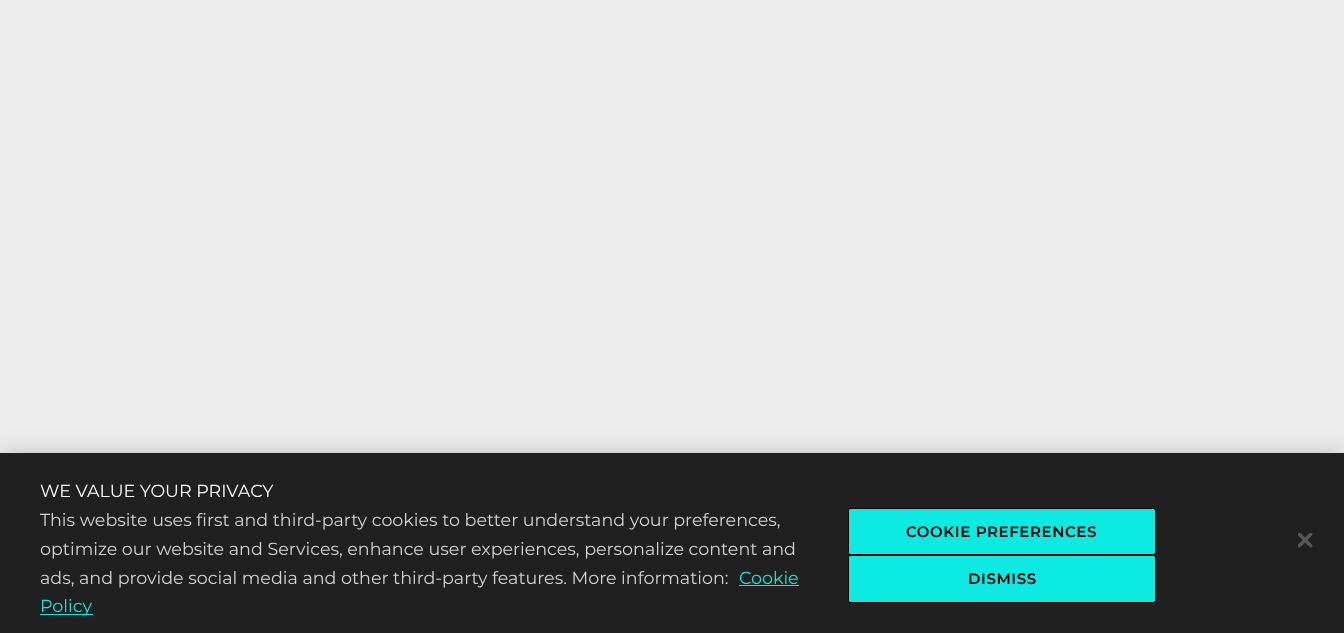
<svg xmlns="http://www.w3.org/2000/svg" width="1344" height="633">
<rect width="100%" height="100%" fill="#ededed"/>
<rect y="453" width="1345" height="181" fill="#00000033" filter="blur(11px)"/>
<rect y="453" width="1344" height="180" fill="#202020"/>
<text x="40" y="497" style="font-family:Montserrat;font-size:17.5px;fill:#fff">WE VALUE YOUR PRIVACY</text>
<text x="40" y="526" style="font-family:Montserrat;font-size:17.5px;fill:#d2d2d2">This website uses first and third-party cookies to better understand your preferences,</text>
<text x="40" y="555" style="font-family:Montserrat;font-size:17.5px;fill:#d2d2d2">optimize our website and Services, enhance user experiences, personalize content and</text>
<text x="40" y="584" style="font-family:Montserrat;font-size:17.5px;fill:#d2d2d2">ads, and provide social media and other third-party features. More information:</text>
<text x="739" y="584" style="font-family:Montserrat;font-size:17.5px;fill:#0ceae2">Cookie</text>
<rect x="739" y="585" width="60" height="1" fill="#0ceae2"/>
<rect x="40" y="614" width="53" height="1" fill="#0ceae2"/>
<text x="40" y="612" style="font-family:Montserrat;font-size:17.5px;fill:#0ceae2">Policy</text>
<rect x="848.5" y="508.5" width="307" height="46" rx="2" fill="#0ceae2" stroke="#000"/>
<text x="906" y="537" style="font-family:Montserrat;font-size:15px;font-weight:600;letter-spacing:0.6px;fill:#000">COOKIE PREFERENCES</text>
<rect x="848.5" y="555.5" width="307" height="47" rx="2" fill="#0ceae2" stroke="#000"/>
<text x="968" y="584" style="font-family:Montserrat;font-size:15px;font-weight:600;letter-spacing:0.6px;fill:#000">DISMISS</text>
<image x="1298" y="533" width="15" height="15" href="media/1.png"/>
</svg>
